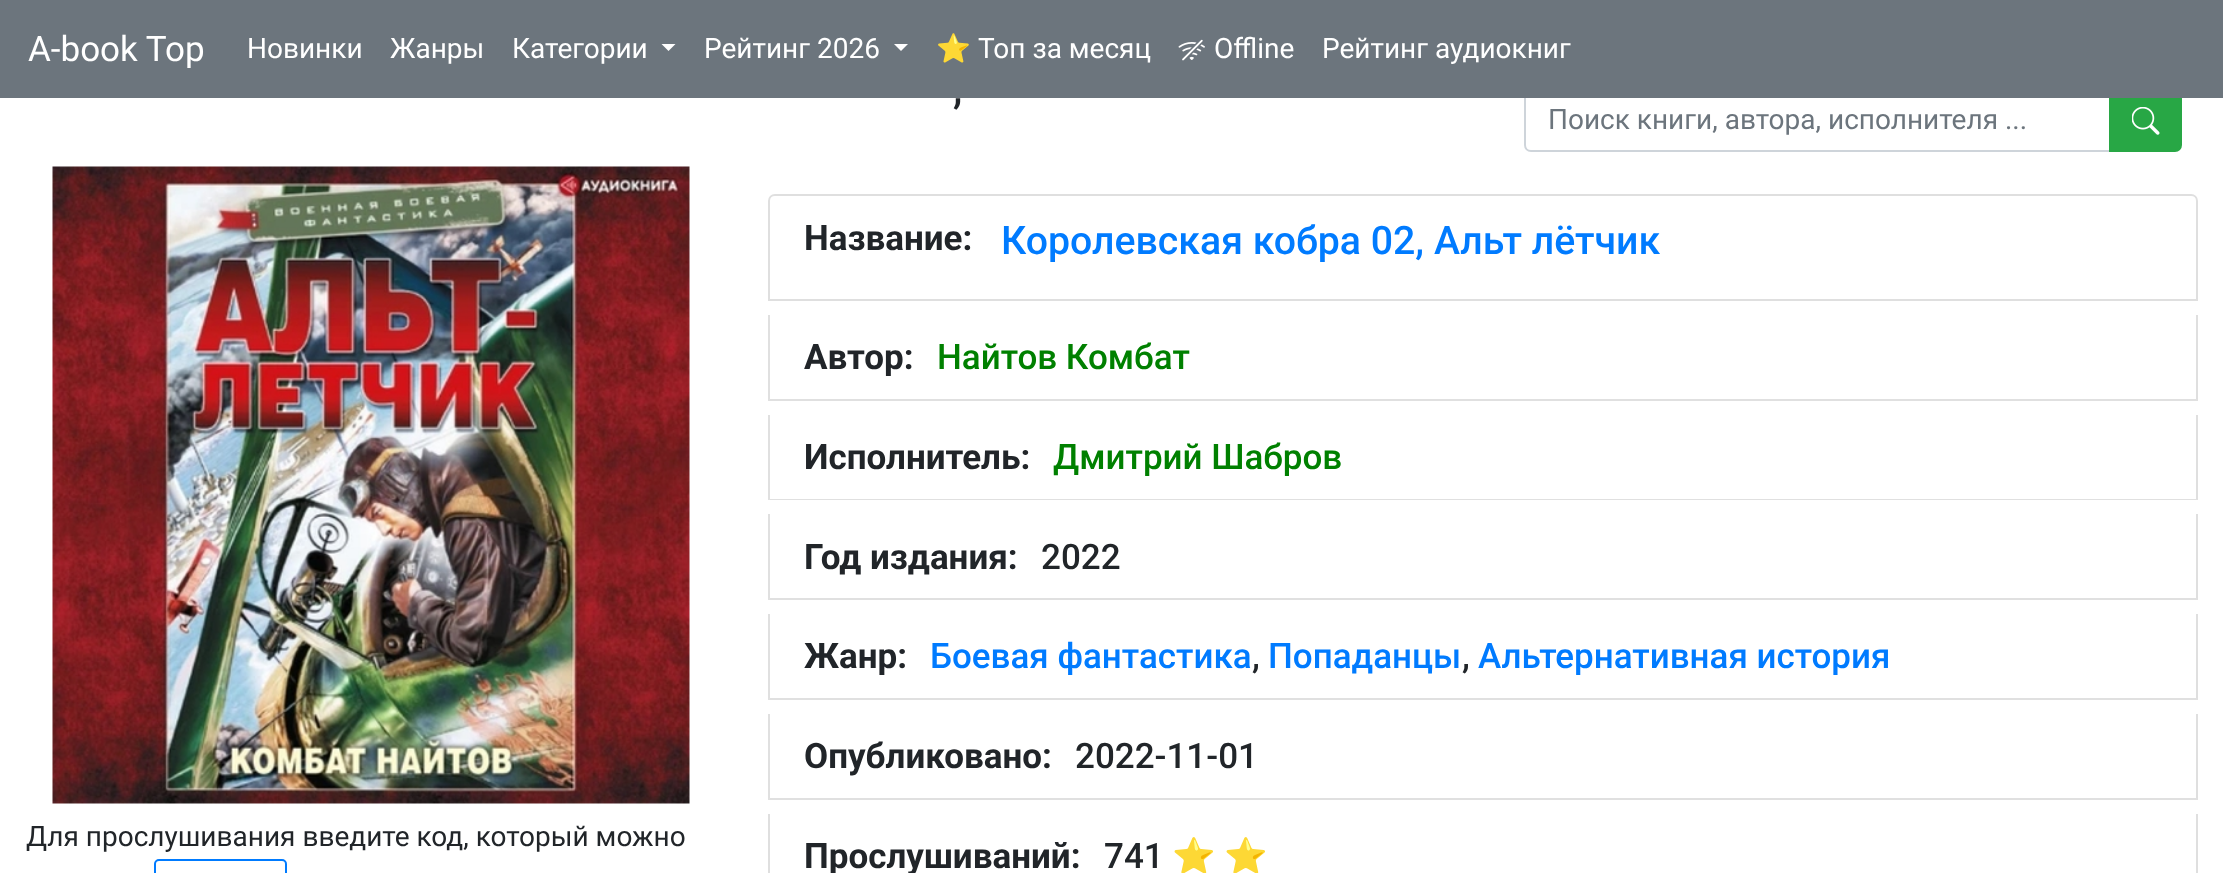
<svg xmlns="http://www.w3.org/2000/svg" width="2223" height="873">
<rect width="100%" height="100%" fill="#fff"/>
<path d="M1531 87h579v64h-579c-3.5 0-6-2.5-6-6v-52c0-3.5 2.5-6 6-6z" fill="none" stroke="#ced4da" stroke-width="2"/>
<path d="M2110 87h65c3.5 0 6 2.5 6 6v52c0 3.5-2.5 6-6 6h-65z" fill="#28a745" stroke="#28a745" stroke-width="2"/>
<rect width="2223" height="98" fill="#6c757d"/>
<text x="28" y="61" style="font-family:Roboto;font-size:35px;fill:#fff">A-book Top</text>
<text x="247" y="58" style="font-family:Roboto;font-size:28px;fill:#fff">Новинки</text>
<text x="390" y="58" style="font-family:Roboto;font-size:28px;fill:#fff">Жанры</text>
<text x="512" y="58" style="font-family:Roboto;font-size:28px;fill:#fff">Категории</text>
<path d="M661.5 44h14l-7 7z" fill="#fff"/>
<text x="704" y="58" style="font-family:Roboto;font-size:28px;fill:#fff">Рейтинг 2026</text>
<path d="M894 44h14l-7 7z" fill="#fff"/>
<text x="936" y="58" style="font-family:Noto Color Emoji;font-size:28px;fill:#fff">⭐</text>
<text x="978" y="58" style="font-family:Roboto;font-size:28px;fill:#fff">Топ за месяц</text>
<image x="1178" y="39" width="27" height="22" href="media/1.png"/>
<text x="1214" y="58" style="font-family:Roboto;font-size:28px;fill:#fff">Offline</text>
<text x="1322" y="58" style="font-family:Roboto;font-size:28px;fill:#fff">Рейтинг аудиокниг</text>
<text x="953" y="103" style="font-family:Roboto;font-size:42px;font-weight:500;fill:#212529">,</text>
<text x="1548" y="129" style="font-family:Roboto;font-size:28px;fill:#6c757d">Поиск книги, автора, исполнителя ...</text>
<image x="2132" y="107" width="28" height="28" href="media/2.png"/>
<image x="52" y="166" width="638" height="638" href="media/3.png"/>
<text x="26" y="846" style="font-family:Roboto;font-size:28px;fill:#212529">Для прослушивания введите код, который можно</text>
<rect x="155" y="860" width="131" height="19" rx="4" fill="none" stroke="#007bff" stroke-width="2"/>
<path d="M775 195h1416c3.5 0 6 2.5 6 6v99h-1428v-99c0-3.5 2.5-6 6-6z" fill="none" stroke="#dfdfdf" stroke-width="2"/>
<text x="804" y="250" style="font-family:Roboto;font-size:35px;font-weight:bold;fill:#212529">Название:</text>
<text x="1001" y="254" style="font-family:Roboto;font-size:39.25px;font-weight:500;fill:#007bff">Королевская кобра 02, Альт лётчик</text>
<path d="M2198 315v86l-2-2v-84z" fill="#dfdfdf"/>
<path d="M2198 401h-1430l2-2h1426z" fill="#0000001f"/>
<path d="M768 401v-86h2v84z" fill="#0000001f"/>
<text x="804" y="369" style="font-family:Roboto;font-size:35px;font-weight:bold;fill:#212529">Автор:</text>
<text x="937" y="369" style="font-family:Roboto;font-size:35px;font-weight:500;fill:#008000">Найтов Комбат</text>
<path d="M2198 415v85l-2-1v-84z" fill="#dfdfdf"/>
<path d="M2198 500h-1430l2-1h1426z" fill="#0000001f"/>
<path d="M768 500v-85h2v84z" fill="#0000001f"/>
<text x="804" y="469" style="font-family:Roboto;font-size:35px;font-weight:bold;fill:#212529">Исполнитель:</text>
<text x="1053" y="469" style="font-family:Roboto;font-size:35px;font-weight:500;fill:#008000">Дмитрий Шабров</text>
<path d="M2198 514v86l-2-2v-84z" fill="#dfdfdf"/>
<path d="M2198 600h-1430l2-2h1426z" fill="#0000001f"/>
<path d="M768 600v-86h2v84z" fill="#0000001f"/>
<text x="804" y="569" style="font-family:Roboto;font-size:35px;font-weight:bold;fill:#212529">Год издания:</text>
<text x="1041" y="569" style="font-family:Roboto;font-size:35px;font-weight:500;fill:#212529">2022</text>
<path d="M2198 614v86l-2-2v-84z" fill="#dfdfdf"/>
<path d="M2198 700h-1430l2-2h1426z" fill="#0000001f"/>
<path d="M768 700v-86h2v84z" fill="#0000001f"/>
<text x="804" y="668" style="font-family:Roboto;font-size:35px;font-weight:bold;fill:#212529">Жанр:</text>
<text x="930" y="668" style="font-family:Roboto;font-size:35px;font-weight:500;fill:#007bff">Боевая фантастика</text>
<text x="1252" y="668" style="font-family:Roboto;font-size:35px;font-weight:500;fill:#212529">,</text>
<text x="1268" y="668" style="font-family:Roboto;font-size:35px;font-weight:500;fill:#007bff">Попаданцы</text>
<text x="1462" y="668" style="font-family:Roboto;font-size:35px;font-weight:500;fill:#212529">,</text>
<text x="1478" y="668" style="font-family:Roboto;font-size:35px;font-weight:500;fill:#007bff">Альтернативная история</text>
<path d="M2198 714v86l-2-2v-84z" fill="#dfdfdf"/>
<path d="M2198 800h-1430l2-2h1426z" fill="#0000001f"/>
<path d="M768 800v-86h2v84z" fill="#0000001f"/>
<text x="804" y="768" style="font-family:Roboto;font-size:35px;font-weight:bold;fill:#212529">Опубликовано:</text>
<text x="1075" y="768" style="font-family:Roboto;font-size:35px;font-weight:500;fill:#212529">2022-11-01</text>
<path d="M2198 814v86l-2-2v-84z" fill="#dfdfdf"/>
<path d="M768 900v-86h2v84z" fill="#dfdfdf"/>
<text x="804" y="868" style="font-family:Roboto;font-size:35px;font-weight:bold;fill:#212529">Прослушиваний:</text>
<text x="1104" y="868" style="font-family:Roboto;font-size:35px;font-weight:500;fill:#212529">741</text>
<text x="1172" y="868" style="font-family:Noto Color Emoji;font-size:35px;fill:#212529">⭐</text>
<text x="1224" y="868" style="font-family:Noto Color Emoji;font-size:35px;fill:#212529">⭐</text>
</svg>
